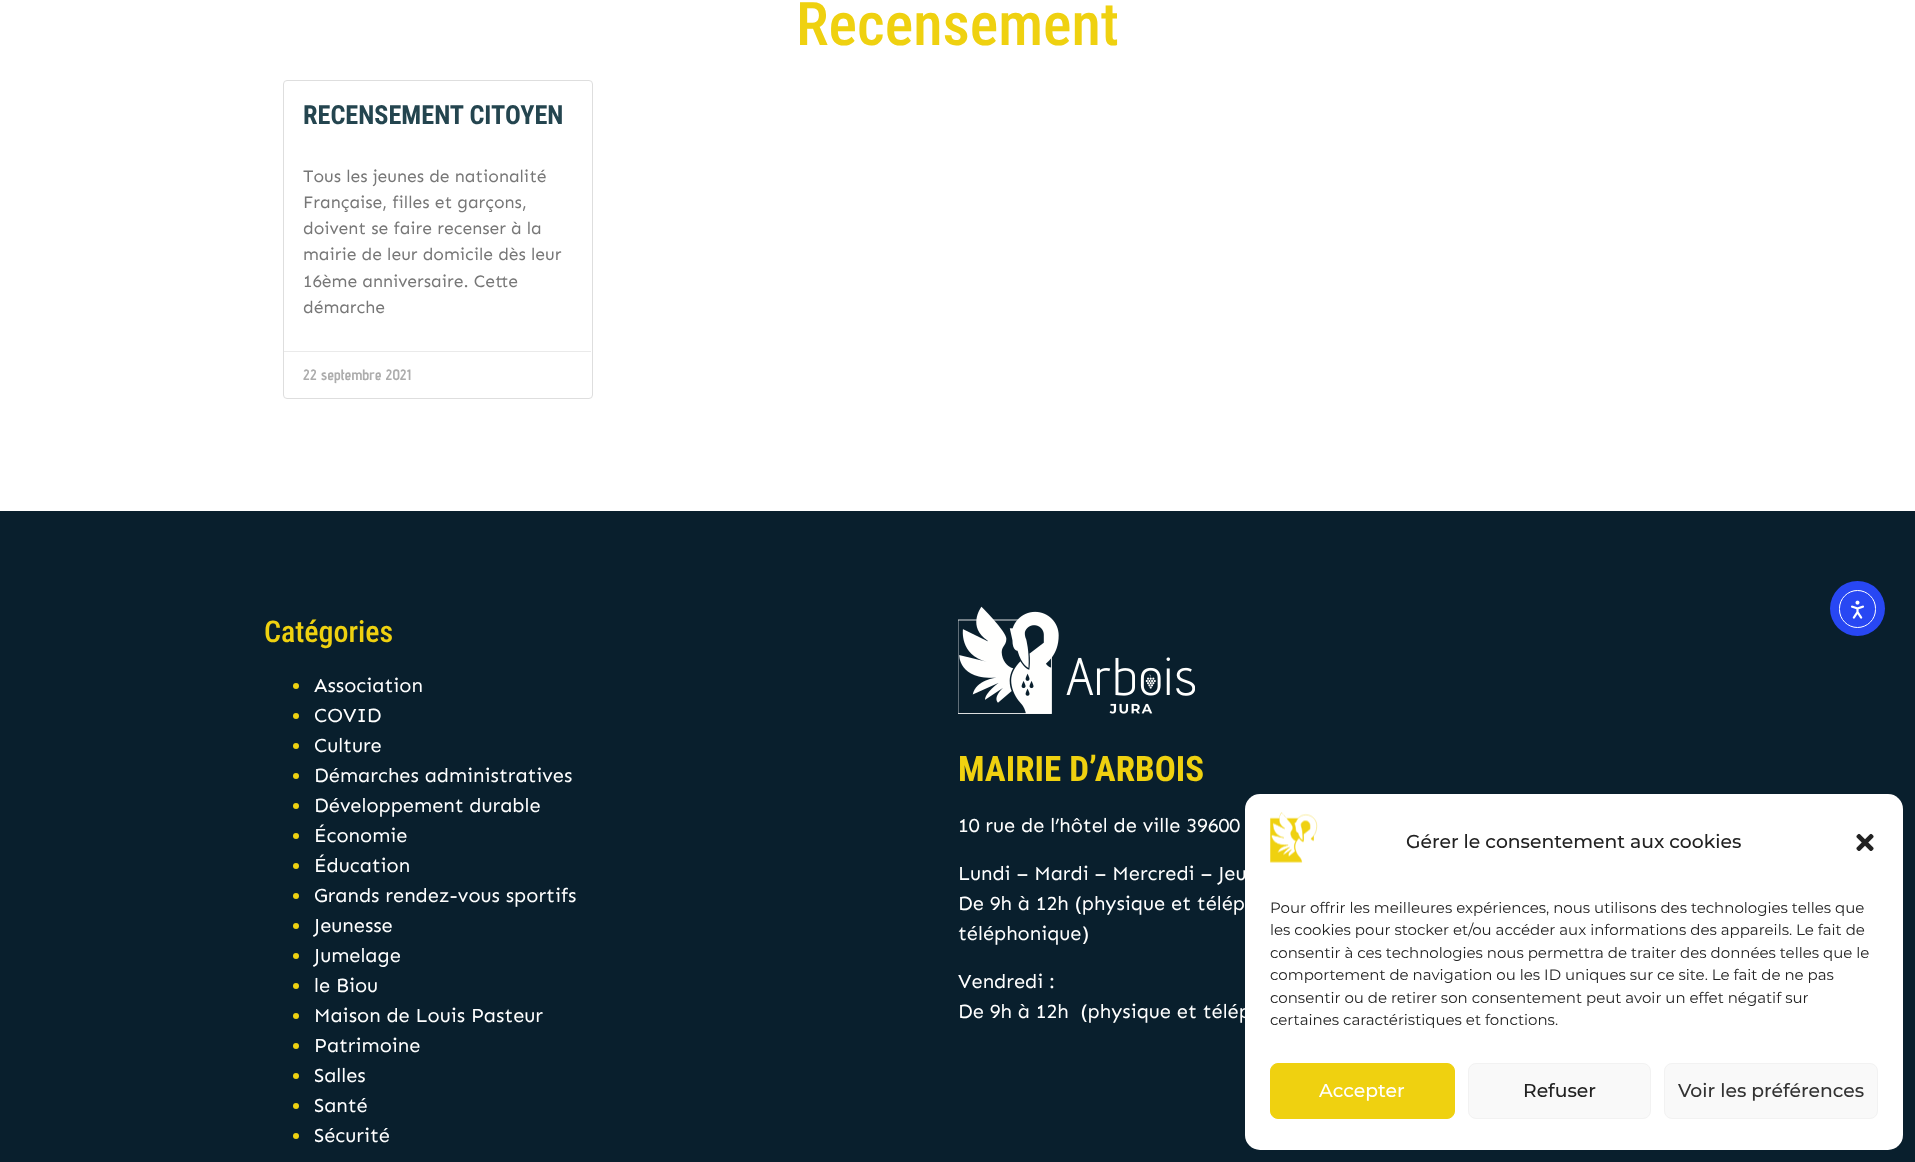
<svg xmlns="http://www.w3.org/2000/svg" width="1915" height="1162">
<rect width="100%" height="100%" fill="#fff"/>
<text x="796" y="45" style="font-family:Roboto Condensed;font-size:60px;font-weight:500;fill:#efd110">Recensement</text>
<rect x="283.5" y="80.5" width="309" height="318" rx="3.5" fill="none" stroke="#dedede"/>
<text x="303" y="124" style="font-family:Roboto Condensed;font-size:26.25px;font-weight:bold;fill:#24454f">RECENSEMENT CITOYEN</text>
<text x="303" y="182" style="font-family:Sen;font-size:17.5px;fill:#777">Tous les jeunes de nationalité</text>
<text x="303" y="208" style="font-family:Sen;font-size:17.5px;fill:#777">Française, filles et garçons,</text>
<text x="303" y="234" style="font-family:Sen;font-size:17.5px;fill:#777">doivent se faire recenser à la</text>
<text x="303" y="260" style="font-family:Sen;font-size:17.5px;fill:#777">mairie de leur domicile dès leur</text>
<text x="303" y="287" style="font-family:Sen;font-size:17.5px;fill:#777">16ème anniversaire. Cette</text>
<text x="303" y="313" style="font-family:Sen;font-size:17.5px;fill:#777">démarche</text>
<rect x="284" y="351" width="307" height="1" fill="#eaeaea"/>
<text x="303" y="380" style="font-family:Advent Pro;font-size:15px;font-weight:bold;fill:#adadad">22 septembre 2021</text>
<rect y="511" width="1915" height="651" fill="#091f2d"/>
<circle cx="1857.5" cy="608.5" r="27.5" fill="#2847f3"/>
<rect x="1839.5" y="590.5" width="36" height="37" rx="18" fill="none" stroke="#fff"/>
<image x="1850" y="600" width="14" height="19" href="media/1.png"/>
<text x="264" y="642" style="font-family:Roboto Condensed;font-size:30px;font-weight:500;fill:#efd110">Catégories</text>
<circle cx="296" cy="686" r="3" fill="#efd110"/>
<text x="314" y="692" style="font-family:Sen;font-size:20px;fill:#fff">Association</text>
<circle cx="296" cy="716" r="3" fill="#efd110"/>
<text x="314" y="722" style="font-family:Sen;font-size:20px;fill:#fff">COVID</text>
<circle cx="296" cy="746" r="3" fill="#efd110"/>
<text x="314" y="752" style="font-family:Sen;font-size:20px;fill:#fff">Culture</text>
<circle cx="296" cy="776" r="3" fill="#efd110"/>
<text x="314" y="782" style="font-family:Sen;font-size:20px;fill:#fff">Démarches administratives</text>
<circle cx="296" cy="806" r="3" fill="#efd110"/>
<text x="314" y="812" style="font-family:Sen;font-size:20px;fill:#fff">Développement durable</text>
<circle cx="296" cy="836" r="3" fill="#efd110"/>
<text x="314" y="842" style="font-family:Sen;font-size:20px;fill:#fff">Économie</text>
<circle cx="296" cy="866" r="3" fill="#efd110"/>
<text x="314" y="872" style="font-family:Sen;font-size:20px;fill:#fff">Éducation</text>
<circle cx="296" cy="896" r="3" fill="#efd110"/>
<text x="314" y="902" style="font-family:Sen;font-size:20px;fill:#fff">Grands rendez-vous sportifs</text>
<circle cx="296" cy="926" r="3" fill="#efd110"/>
<text x="314" y="932" style="font-family:Sen;font-size:20px;fill:#fff">Jeunesse</text>
<circle cx="296" cy="956" r="3" fill="#efd110"/>
<text x="314" y="962" style="font-family:Sen;font-size:20px;fill:#fff">Jumelage</text>
<circle cx="296" cy="986" r="3" fill="#efd110"/>
<text x="314" y="992" style="font-family:Sen;font-size:20px;fill:#fff">le Biou</text>
<circle cx="296" cy="1016" r="3" fill="#efd110"/>
<text x="314" y="1022" style="font-family:Sen;font-size:20px;fill:#fff">Maison de Louis Pasteur</text>
<circle cx="296" cy="1046" r="3" fill="#efd110"/>
<text x="314" y="1052" style="font-family:Sen;font-size:20px;fill:#fff">Patrimoine</text>
<circle cx="296" cy="1076" r="3" fill="#efd110"/>
<text x="314" y="1082" style="font-family:Sen;font-size:20px;fill:#fff">Salles</text>
<circle cx="296" cy="1106" r="3" fill="#efd110"/>
<text x="314" y="1112" style="font-family:Sen;font-size:20px;fill:#fff">Santé</text>
<circle cx="296" cy="1136" r="3" fill="#efd110"/>
<text x="314" y="1142" style="font-family:Sen;font-size:20px;fill:#fff">Sécurité</text>
<image x="958" y="606" width="237" height="108" href="media/2.png"/>
<text x="958" y="781" style="font-family:Roboto Condensed;font-size:35px;font-weight:bold;fill:#efd110">MAIRIE D’ARBOIS</text>
<text x="958" y="832" style="font-family:Sen;font-size:20px;fill:#fff">10 rue de l’hôtel de ville 39600</text>
<text x="958" y="880" style="font-family:Sen;font-size:20px;fill:#fff">Lundi – Mardi – Mercredi – Jeu</text>
<text x="958" y="910" style="font-family:Sen;font-size:20px;fill:#fff">De 9h à 12h (physique et télép</text>
<text x="958" y="940" style="font-family:Sen;font-size:20px;fill:#fff">téléphonique)</text>
<text x="958" y="988" style="font-family:Sen;font-size:20px;fill:#fff">Vendredi :</text>
<text x="958" y="1018" style="font-family:Sen;font-size:20px;fill:#fff" xml:space="preserve">De 9h à 12h  (physique et télép</text>
<rect x="1245" y="794" width="658" height="356" rx="15" fill="#fff"/>
<image x="1270" y="812" width="48" height="51" href="media/3.png"/>
<text x="1406" y="848" style="font-family:Montserrat;font-size:18.75px;font-weight:500;fill:#222">Gérer le consentement aux cookies</text>
<image x="1856" y="833" width="18" height="18" href="media/4.png"/>
<text x="1270" y="913" style="font-family:Montserrat;font-size:15px;fill:#222">Pour offrir les meilleures expériences, nous utilisons des technologies telles que</text>
<text x="1270" y="935" style="font-family:Montserrat;font-size:15px;fill:#222">les cookies pour stocker et/ou accéder aux informations des appareils. Le fait de</text>
<text x="1270" y="958" style="font-family:Montserrat;font-size:15px;fill:#222">consentir à ces technologies nous permettra de traiter des données telles que le</text>
<text x="1270" y="980" style="font-family:Montserrat;font-size:15px;fill:#222">comportement de navigation ou les ID uniques sur ce site. Le fait de ne pas</text>
<text x="1270" y="1003" style="font-family:Montserrat;font-size:15px;fill:#222">consentir ou de retirer son consentement peut avoir un effet négatif sur</text>
<text x="1270" y="1025" style="font-family:Montserrat;font-size:15px;fill:#222">certaines caractéristiques et fonctions.</text>
<rect x="1270.5" y="1063.5" width="184" height="55" rx="7.5" fill="#efd110" stroke="#efd110"/>
<text x="1319" y="1097" style="font-family:Montserrat;font-size:18.75px;font-weight:500;fill:#fff">Accepter</text>
<rect x="1468.5" y="1063.5" width="182" height="55" rx="7.5" fill="#f9f9f9" stroke="#f2f2f2"/>
<text x="1523" y="1097" style="font-family:Montserrat;font-size:18.75px;font-weight:500;fill:#222">Refuser</text>
<rect x="1664.5" y="1063.5" width="213" height="55" rx="7.5" fill="#f9f9f9" stroke="#f2f2f2"/>
<text x="1678" y="1097" style="font-family:Montserrat;font-size:18.75px;font-weight:500;fill:#333">Voir les préférences</text>
</svg>
